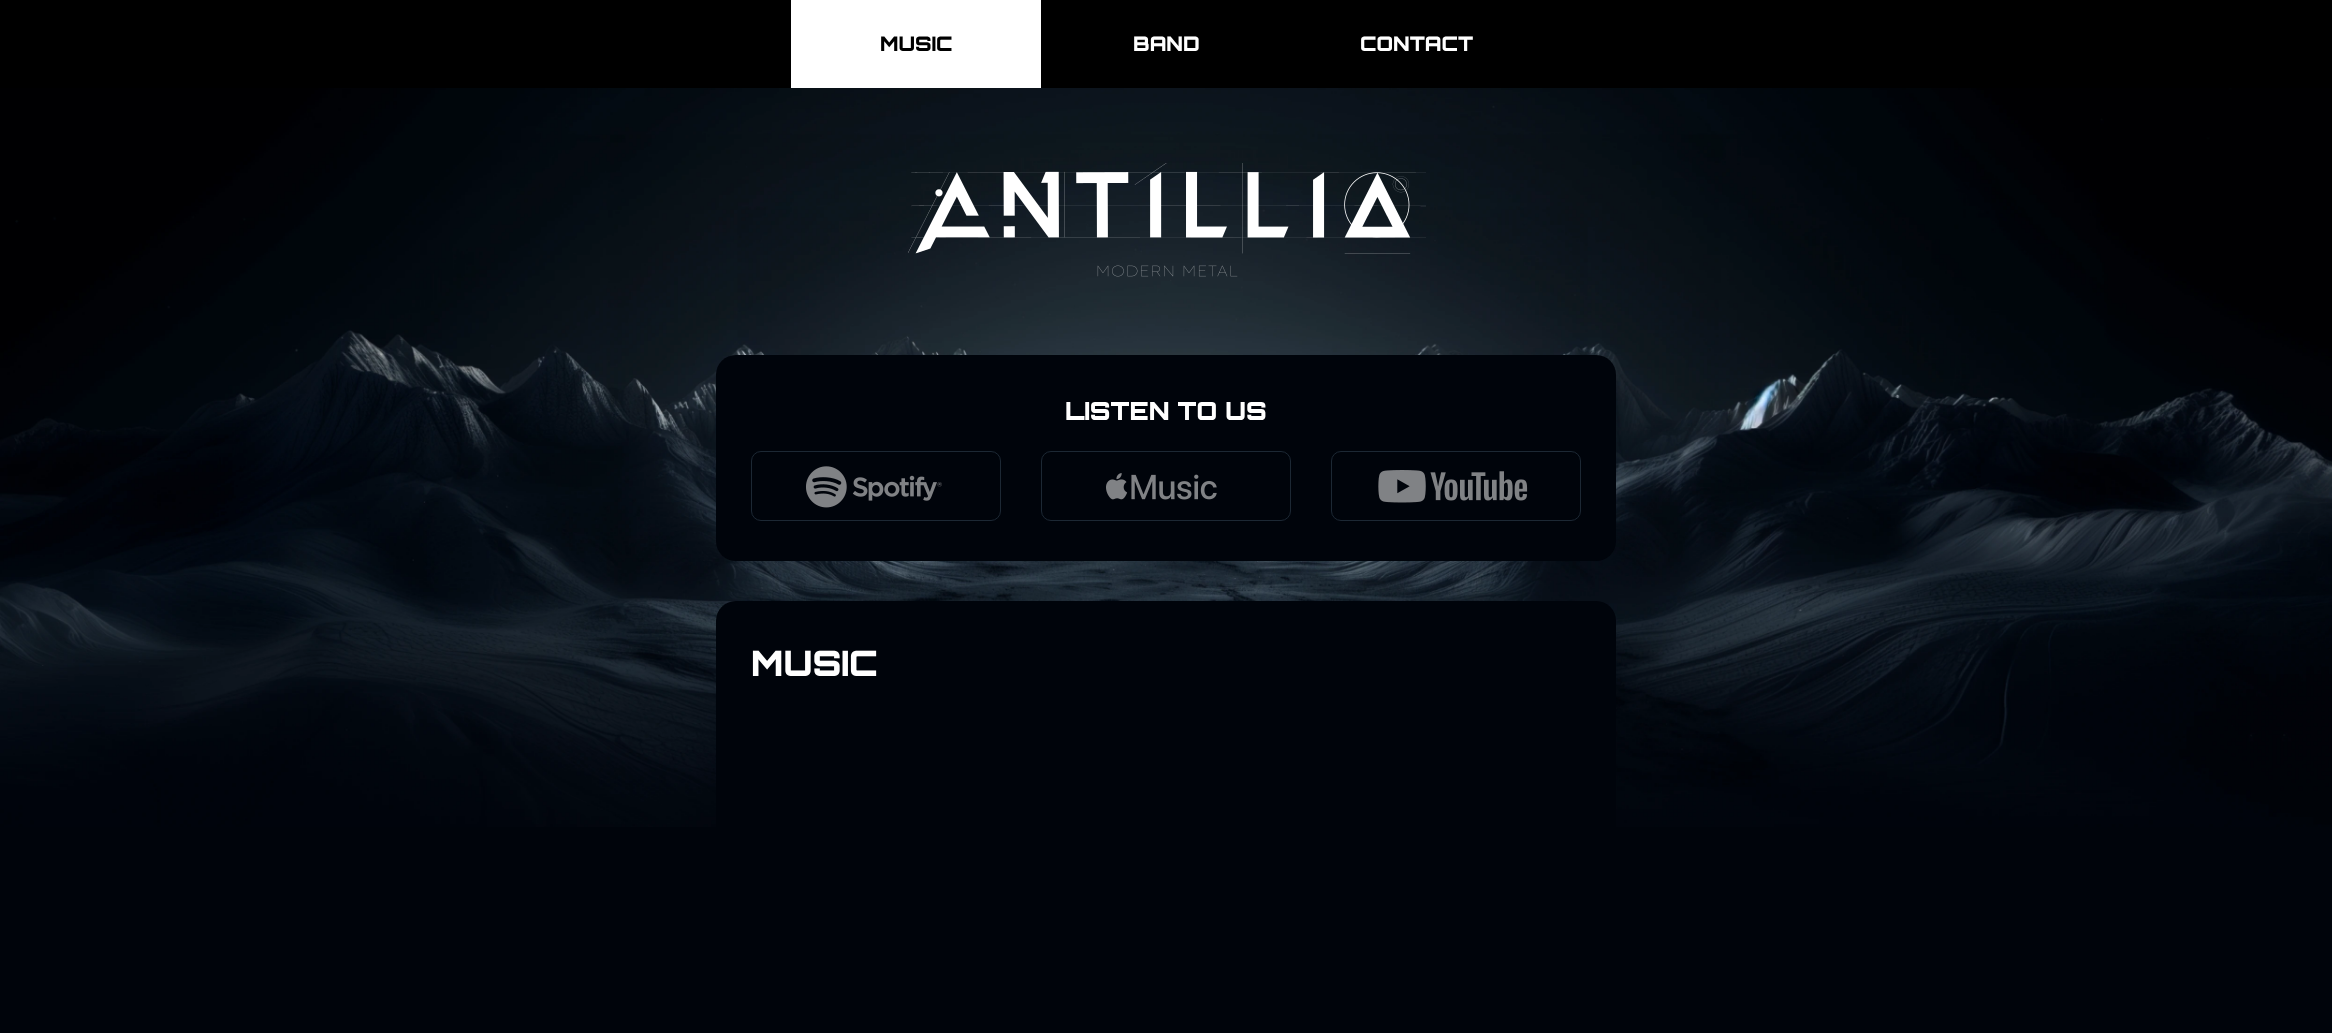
<svg xmlns="http://www.w3.org/2000/svg" width="2332" height="1033">
<rect width="100%" height="100%" fill="#00040b"/>
<image x="0" y="88" width="2332" height="739" href="media/1.png"/>
<rect width="2332" height="88" fill="#000"/>
<rect x="791" width="250" height="88" fill="#fff"/>
<text x="880" y="51" style="font-family:Orbitron;font-size:20px;font-weight:900;fill:#000">MUSIC</text>
<text x="1133" y="51" style="font-family:Orbitron;font-size:20px;font-weight:900;fill:#fff">BAND</text>
<text x="1360" y="51" style="font-family:Orbitron;font-size:20px;font-weight:900;fill:#fff">CONTACT</text>
<image x="908" y="163" width="518" height="114" href="media/2.png"/>
<rect x="716" y="355" width="900" height="206" rx="20" fill="#00040b"/>
<text x="1065" y="420" style="font-family:Orbitron;font-size:25px;font-weight:900;fill:#fff">LISTEN TO US</text>
<rect x="751.5" y="451.5" width="249" height="69" rx="9.5" fill="none" stroke="#1c2834"/>
<image x="806" y="466" width="136" height="42" href="media/3.png"/>
<rect x="1041.5" y="451.5" width="249" height="69" rx="9.5" fill="none" stroke="#1c2834"/>
<image x="1106" y="473" width="111" height="27" href="media/4.png"/>
<rect x="1331.5" y="451.5" width="249" height="69" rx="9.5" fill="none" stroke="#1c2834"/>
<image x="1378" y="470" width="150" height="33" href="media/5.png"/>
<rect x="716" y="601" width="900" height="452" rx="20" fill="#00040b"/>
<text x="751" y="676" style="font-family:Orbitron;font-size:35px;font-weight:900;fill:#fff">MUSIC</text>
</svg>
